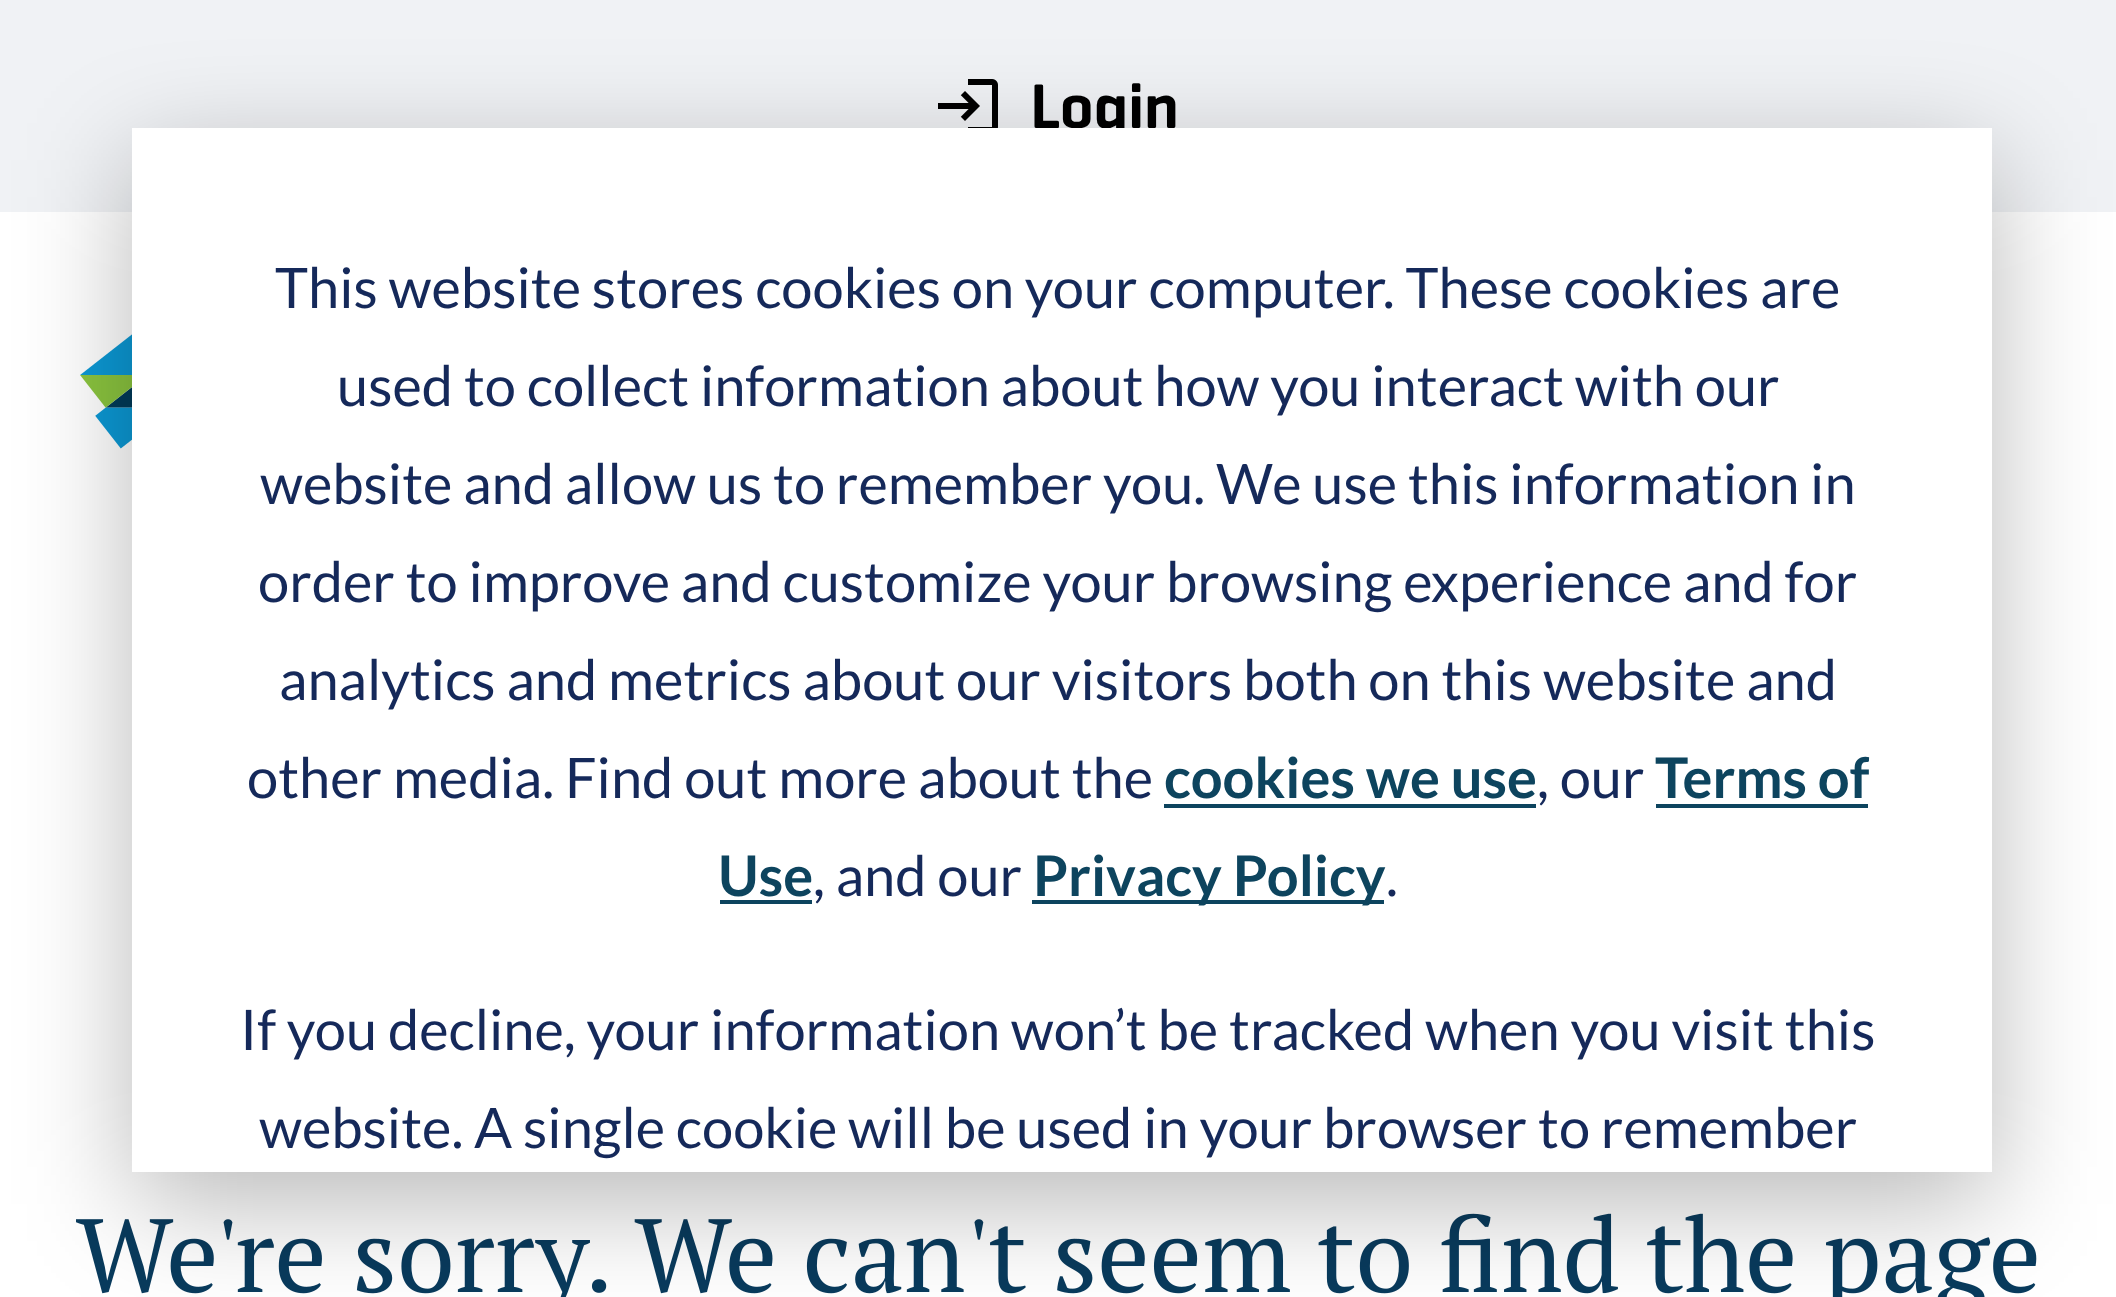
<svg xmlns="http://www.w3.org/2000/svg" width="2116" height="1297">
<rect width="100%" height="100%" fill="#fff"/>
<rect width="2116" height="212" fill="#f0f2f5"/>
<image x="938" y="79" width="60" height="49" href="media/1.png"/>
<text x="1030" y="128" style="font-family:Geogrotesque;font-size:64px;font-weight:600;fill:#000">Login</text>
<image x="80" y="334" width="52" height="115" href="media/2.png"/>
<image x="76" y="1213" width="1961" height="84" href="media/3.png"/>
<rect x="132" y="160" width="1860" height="1044" fill="#00000047" filter="blur(56px)"/>
<rect x="132" y="128" width="1860" height="1044" fill="#fff"/>
<text x="275" y="308" style="font-family:Lato;font-size:56px;fill:#15295a">This website stores cookies on your computer. These cookies are</text>
<text x="337" y="406" style="font-family:Lato;font-size:56px;fill:#15295a">used to collect information about how you interact with our</text>
<text x="260" y="504" style="font-family:Lato;font-size:56px;fill:#15295a">website and allow us to remember you. We use this information in</text>
<text x="258" y="602" style="font-family:Lato;font-size:56px;fill:#15295a">order to improve and customize your browsing experience and for</text>
<text x="279" y="700" style="font-family:Lato;font-size:56px;fill:#15295a">analytics and metrics about our visitors both on this website and</text>
<text x="247" y="798" style="font-family:Lato;font-size:56px;fill:#15295a">other media. Find out more about the</text>
<text x="1164" y="798" style="font-family:Lato;font-size:56px;font-weight:bold;fill:#0d445e">cookies we use</text>
<rect x="1164" y="804" width="372" height="4" fill="#0d445e"/>
<text x="1537" y="798" style="font-family:Lato;font-size:56px;fill:#15295a">, our</text>
<text x="1655" y="798" style="font-family:Lato;font-size:56px;font-weight:bold;fill:#0d445e">Terms of</text>
<rect x="1656" y="804" width="212" height="4" fill="#0d445e"/>
<text x="718" y="896" style="font-family:Lato;font-size:56px;font-weight:bold;fill:#0d445e">Use</text>
<rect x="720" y="900" width="92" height="4" fill="#0d445e"/>
<text x="813" y="896" style="font-family:Lato;font-size:56px;fill:#15295a">, and our</text>
<rect x="1032" y="900" width="352" height="4" fill="#0d445e"/>
<text x="1033" y="896" style="font-family:Lato;font-size:56px;font-weight:bold;fill:#0d445e">Privacy Policy</text>
<text x="1386" y="896" style="font-family:Lato;font-size:56px;fill:#15295a">.</text>
<text x="240" y="1050" style="font-family:Lato;font-size:56px;fill:#15295a">If you decline, your information won’t be tracked when you visit this</text>
<text x="259" y="1148" style="font-family:Lato;font-size:56px;fill:#15295a">website. A single cookie will be used in your browser to remember</text>
</svg>
